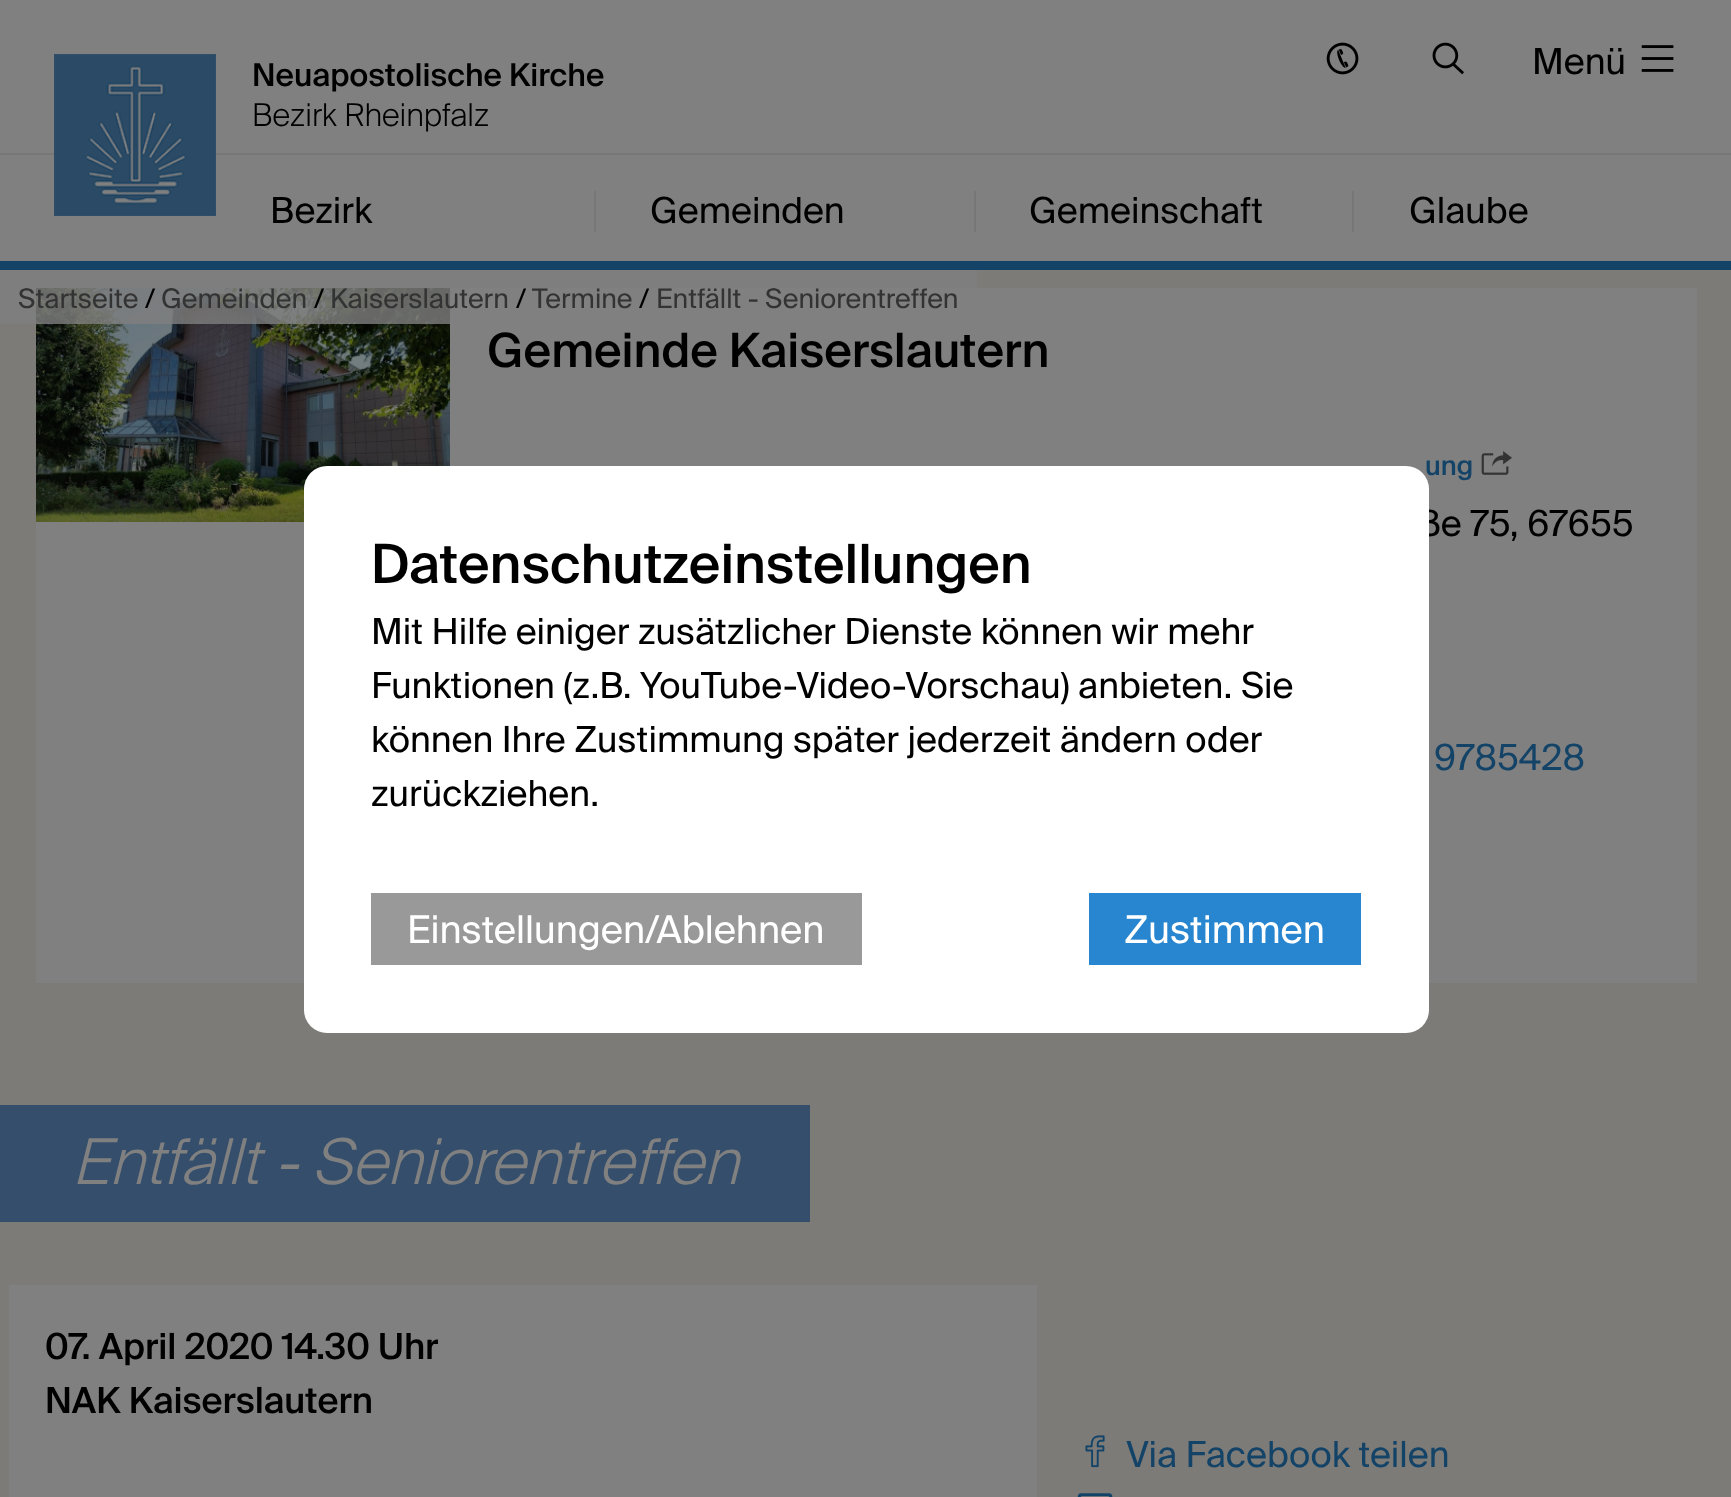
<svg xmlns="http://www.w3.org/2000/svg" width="1731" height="1497">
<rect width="100%" height="100%" fill="#7d7b78"/>
<rect width="1731" height="261" fill="#808080"/>
<rect y="261" width="1731" height="9" fill="#144368"/>
<rect y="153" width="1731" height="2" fill="#777"/>
<image x="54" y="54" width="162" height="162" href="media/1.png"/>
<text x="252" y="86" style="font-family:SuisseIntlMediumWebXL;font-size:31.5px;font-weight:500;fill:#000">Neuapostolische Kirche</text>
<image x="1326" y="42" width="33" height="33" href="media/2.png"/>
<image x="1432" y="42" width="32" height="33" href="media/3.png"/>
<text x="1532" y="74" style="font-family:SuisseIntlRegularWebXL;font-size:36px;fill:#000">Menü</text>
<image x="1641" y="45" width="33" height="27" href="media/4.png"/>
<text x="252" y="126" style="font-family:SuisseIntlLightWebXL;font-size:31.5px;font-weight:300;fill:#000">Bezirk Rheinpfalz</text>
<rect x="594" y="191" width="2" height="41" fill="#777"/>
<text x="270" y="223" style="font-family:SuisseIntlRegularWebXL;font-size:36px;fill:#000">Bezirk</text>
<rect x="974" y="191" width="2" height="41" fill="#777"/>
<text x="650" y="223" style="font-family:SuisseIntlRegularWebXL;font-size:36px;fill:#000">Gemeinden</text>
<rect x="1352" y="191" width="2" height="41" fill="#777"/>
<text x="1029" y="223" style="font-family:SuisseIntlRegularWebXL;font-size:36px;fill:#000">Gemeinschaft</text>
<text x="1409" y="223" style="font-family:SuisseIntlRegularWebXL;font-size:36px;fill:#000">Glaube</text>
<rect x="36" y="288" width="1661" height="695" fill="#808080"/>
<image x="36" y="288" width="414" height="234" href="media/5.png"/>
<rect y="270" width="977" height="54" fill="#808080cc"/>
<text x="18" y="308" style="font-family:SuisseIntlRegularWebXL;font-size:27px;fill:#333">Startseite</text>
<text x="145" y="308" style="font-family:SuisseIntlRegularWebXL;font-size:27px;fill:#000">/</text>
<text x="161" y="308" style="font-family:SuisseIntlRegularWebXL;font-size:27px;fill:#333">Gemeinden</text>
<text x="314" y="308" style="font-family:SuisseIntlRegularWebXL;font-size:27px;fill:#000">/</text>
<text x="330" y="308" style="font-family:SuisseIntlRegularWebXL;font-size:27px;fill:#333">Kaiserslautern</text>
<text x="516" y="308" style="font-family:SuisseIntlRegularWebXL;font-size:27px;fill:#000">/</text>
<text x="532" y="308" style="font-family:SuisseIntlRegularWebXL;font-size:27px;fill:#333">Termine</text>
<text x="639" y="308" style="font-family:SuisseIntlRegularWebXL;font-size:27px;fill:#000">/</text>
<text x="656" y="308" style="font-family:SuisseIntlRegularWebXL;font-size:27px;fill:#333">Entfällt - Seniorentreffen</text>
<text x="487" y="367" style="font-family:SuisseIntlMediumWebXL;font-size:47.25px;font-weight:500;fill:#000">Gemeinde Kaiserslautern</text>
<text x="1425" y="475" style="font-family:SuisseIntlMediumWebXL;font-size:27px;font-weight:500;fill:#144368">ung</text>
<image x="1481" y="451" width="31" height="24" href="media/6.png"/>
<text x="1418" y="536" style="font-family:SuisseIntlRegularWebXL;font-size:36px;fill:#000">ße 75, 67655</text>
<text x="1434" y="770" style="font-family:SuisseIntlRegularWebXL;font-size:36px;fill:#144368">9785428</text>
<rect x="304" y="466" width="1125" height="567" rx="23" fill="#fff"/>
<text x="371" y="583" style="font-family:SuisseIntlMediumWebXL;font-size:54px;font-weight:500;fill:#000">Datenschutzeinstellungen</text>
<text x="371" y="644" style="font-family:SuisseIntlRegularWebXL;font-size:36px;fill:#000">Mit Hilfe einiger zusätzlicher Dienste können wir mehr</text>
<text x="371" y="698" style="font-family:SuisseIntlRegularWebXL;font-size:36px;fill:#000">Funktionen (z.B. YouTube-Video-Vorschau) anbieten. Sie</text>
<text x="371" y="752" style="font-family:SuisseIntlRegularWebXL;font-size:36px;fill:#000">können Ihre Zustimmung später jederzeit ändern oder</text>
<text x="371" y="806" style="font-family:SuisseIntlRegularWebXL;font-size:36px;fill:#000">zurückziehen.</text>
<rect x="371" y="893" width="491" height="72" fill="#999"/>
<text x="407" y="943" style="font-family:SuisseIntlRegularWebXL;font-size:38.25px;fill:#fff">Einstellungen/Ablehnen</text>
<rect x="1089" y="893" width="272" height="72" fill="#2786cf"/>
<text x="1124" y="943" style="font-family:SuisseIntlRegularWebXL;font-size:38.25px;fill:#fff">Zustimmen</text>
<rect y="1105" width="810" height="117" fill="#344e6b"/>
<text x="72" y="1184" style="font-family:SuisseIntlLightWebXL;font-size:63px;font-weight:300;font-style:italic;fill:#808080">Entfällt - Seniorentreffen</text>
<rect x="9" y="1285" width="1028" height="212" fill="#808080"/>
<text x="45" y="1359" style="font-family:SuisseIntlMediumWebXL;font-size:36px;font-weight:500;fill:#000">07. April 2020 14.30 Uhr</text>
<text x="45" y="1413" style="font-family:SuisseIntlMediumWebXL;font-size:36px;font-weight:500;fill:#000">NAK Kaiserslautern</text>
<image x="1085" y="1435" width="20" height="33" href="media/7.png"/>
<text x="1126" y="1467" style="font-family:SuisseIntlRegularWebXL;font-size:36px;fill:#144368">Via Facebook teilen</text>
<image x="1077" y="1493" width="36" height="4" href="media/8.png"/>
</svg>
